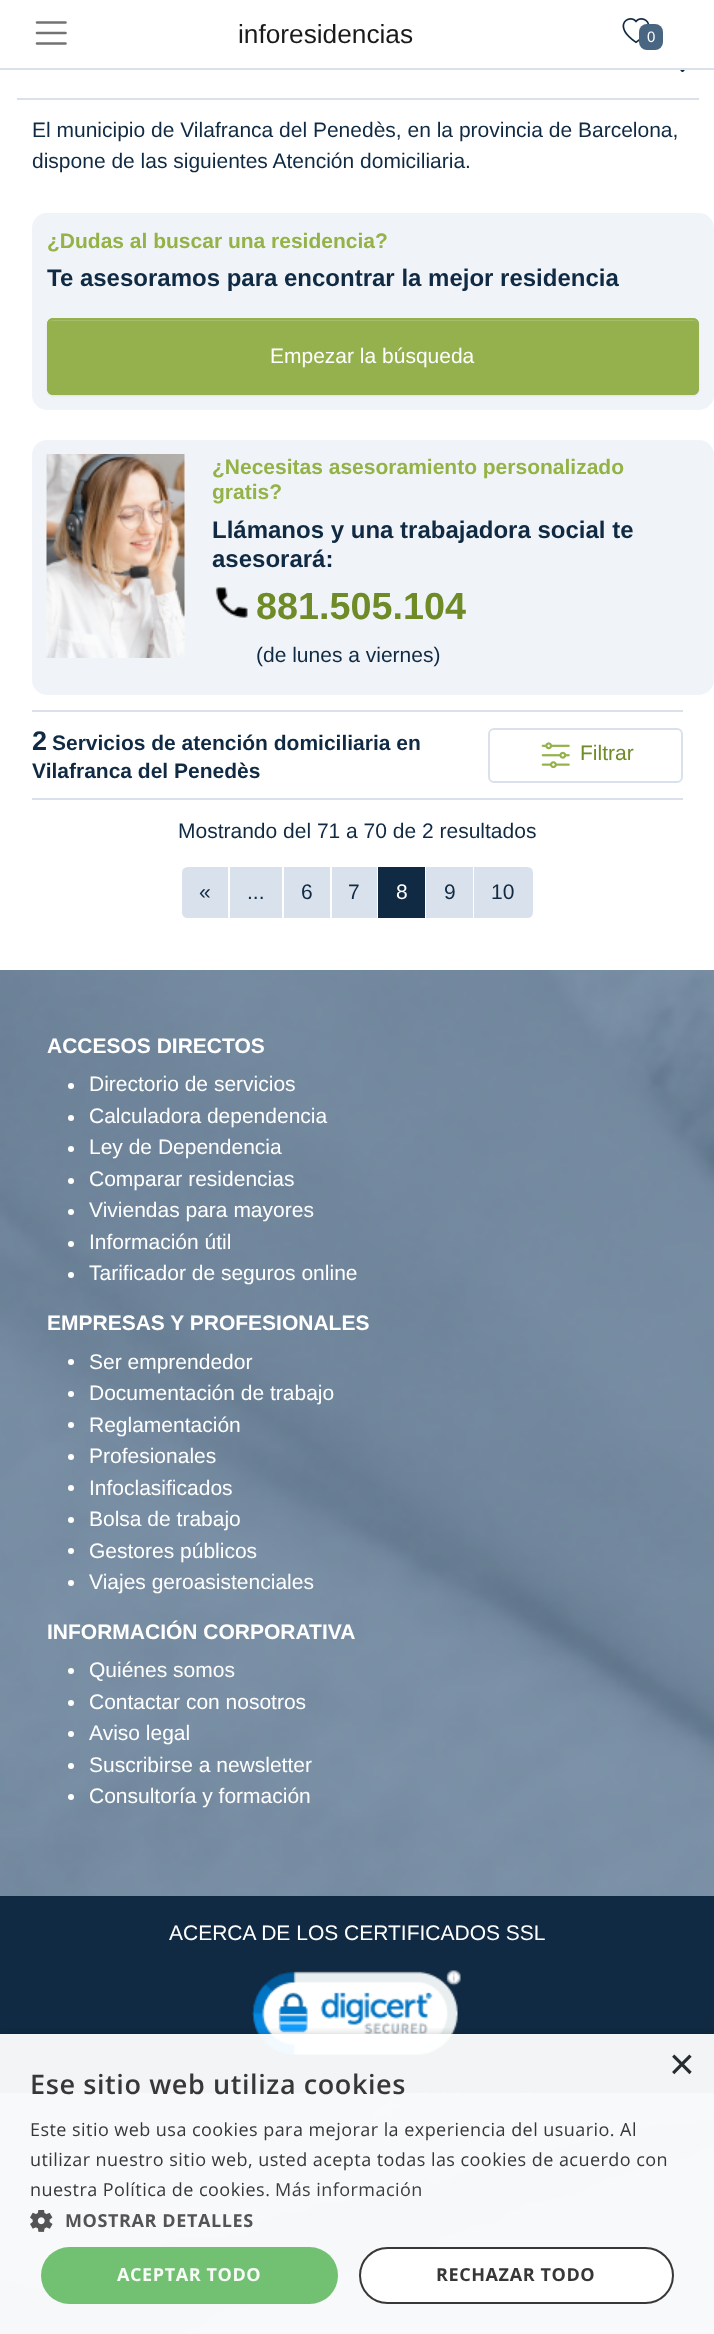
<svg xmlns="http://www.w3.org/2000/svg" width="714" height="2334">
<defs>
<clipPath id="clip1"><rect x="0" y="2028" width="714" height="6"/></clipPath>
</defs>
<rect width="100%" height="100%" fill="#fff"/>
<rect y="68" width="714" height="2" fill="#d9e2ec"/>
<path d="M37 22.5h28.5m-28.5 10.5h28.5m-28.5 10.5h28.5" fill="none" stroke="#737373" stroke-width="2.6" stroke-linecap="round"/>
<text x="238" y="43" style="font-family:Liberation Sans;font-size:26.25px;fill:#1a1a1a">inforesidencias</text>
<image x="622" y="18" width="28" height="26" href="media/1.png"/>
<rect x="639" y="24" width="24" height="26" rx="8" fill="#486581"/>
<text x="647" y="42" style="font-family:Liberation Sans;font-size:15px;fill:#fff">0</text>
<rect x="17" y="98" width="682" height="2" fill="#d9e2ec"/>
<image x="680" y="70" width="5" height="2" href="media/2.png"/>
<text x="32" y="137" style="font-family:Liberation Sans;font-size:21px;fill:#102a43">El municipio de Vilafranca del Penedès, en la provincia de Barcelona,</text>
<text x="32" y="168" style="font-family:Liberation Sans;font-size:21px;fill:#102a43">dispone de las siguientes Atención domiciliaria.</text>
<rect x="32" y="213" width="682" height="197" rx="15" fill="#f0f4f8"/>
<text x="47" y="248" style="font-family:Liberation Sans;font-size:21px;font-weight:bold;fill:#94b247">¿Dudas al buscar una residencia?</text>
<text x="47" y="286" style="font-family:Liberation Sans;font-size:24px;font-weight:bold;fill:#102a43">Te asesoramos para encontrar la mejor residencia</text>
<rect x="47" y="320" width="652" height="76" rx="6" fill="#00000012" filter="blur(1px)"/>
<rect x="47" y="318" width="652" height="77" rx="6" fill="#95b14d"/>
<path d="M52 321h642c2 0 4 2 4 4c0-3-1-5-4-5h-642l-3 1l-1 1v3c0-2 2-4 4-4z" fill="#a5bd68"/>
<rect x="48" y="319" width="650" height="75" rx="5" fill="none" stroke="#95b14d" stroke-width="2"/>
<text x="270" y="363" style="font-family:Liberation Sans;font-size:21px;fill:#fff">Empezar la búsqueda</text>
<rect x="32" y="440" width="682" height="255" rx="15" fill="#f0f4f8"/>
<image x="46" y="454" width="139" height="204" href="media/3.png"/>
<text x="212" y="474" style="font-family:Liberation Sans;font-size:21px;font-weight:bold;fill:#94b247">¿Necesitas asesoramiento personalizado</text>
<text x="212" y="499" style="font-family:Liberation Sans;font-size:21px;font-weight:bold;fill:#94b247">gratis?</text>
<text x="212" y="538" style="font-family:Liberation Sans;font-size:24px;font-weight:bold;fill:#102a43">Llámanos y una trabajadora social te</text>
<text x="212" y="567" style="font-family:Liberation Sans;font-size:24px;font-weight:bold;fill:#102a43">asesorará:</text>
<image x="215" y="587" width="33" height="31" href="media/4.png"/>
<text x="256" y="619" style="font-family:Liberation Sans;font-size:37.75px;font-weight:bold;fill:#6f8b27">881.505.104</text>
<text x="256" y="662" style="font-family:Liberation Sans;font-size:21px;fill:#102a43">(de lunes a viernes)</text>
<rect x="32" y="710" width="651" height="2" fill="#d9e2ec"/>
<rect x="32" y="798" width="651" height="2" fill="#d9e2ec"/>
<text x="32" y="750" style="font-family:Liberation Sans;font-size:27px;font-weight:bold;fill:#102a43">2</text>
<text x="52" y="750" style="font-family:Liberation Sans;font-size:21px;font-weight:bold;fill:#102a43">Servicios de atención domiciliaria en</text>
<text x="32" y="778" style="font-family:Liberation Sans;font-size:21px;font-weight:bold;fill:#102a43">Vilafranca del Penedès</text>
<rect x="489" y="729" width="193" height="53" rx="5" fill="none" stroke="#d9e2ec" stroke-width="2"/>
<image x="541" y="742" width="29" height="27" href="media/5.png"/>
<text x="580" y="760" style="font-family:Liberation Sans;font-size:21px;fill:#6f8b27">Filtrar</text>
<text x="178" y="838" style="font-family:Liberation Sans;font-size:21px;fill:#102a43">Mostrando del 71 a 70 de 2 resultados</text>
<path d="M188 868h39v49h-39c-3 0-5-2-5-5v-39c0-3 2-5 5-5z" fill="#d9e2ec" stroke="#d9e2ec" stroke-width="2"/>
<text x="199" y="899" style="font-family:Liberation Sans;font-size:21px;fill:#102a43">«</text>
<rect x="230" y="867" width="52" height="51" fill="#d9e2ec"/>
<text x="247" y="899" style="font-family:Liberation Sans;font-size:21px;fill:#102a43">...</text>
<rect x="284" y="867" width="46" height="51" fill="#d9e2ec"/>
<text x="301" y="899" style="font-family:Liberation Sans;font-size:21px;fill:#102a43">6</text>
<rect x="332" y="867" width="45" height="51" fill="#d9e2ec"/>
<text x="348" y="899" style="font-family:Liberation Sans;font-size:21px;fill:#102a43">7</text>
<rect x="378" y="867" width="47" height="51" fill="#102a43"/>
<text x="396" y="899" style="font-family:Liberation Sans;font-size:21px;fill:#fff">8</text>
<rect x="426" y="867" width="47" height="51" fill="#d9e2ec"/>
<text x="444" y="899" style="font-family:Liberation Sans;font-size:21px;fill:#102a43">9</text>
<path d="M475 868h52c3 0 5 2 5 5v39c0 3-2 5-5 5h-52z" fill="#d9e2ec" stroke="#d9e2ec" stroke-width="2"/>
<text x="491" y="899" style="font-family:Liberation Sans;font-size:21px;fill:#102a43">10</text>
<rect y="2333" width="714" height="1" fill="#627d98"/>
<image x="0" y="970" width="714" height="1364" href="media/6.png"/>
<text x="47" y="1053" style="font-family:Liberation Sans;font-size:21px;font-weight:bold;fill:#fff">ACCESOS DIRECTOS</text>
<circle cx="71" cy="1086" r="3" fill="#fff"/>
<text x="89" y="1091" style="font-family:Liberation Sans;font-size:21px;fill:#fff">Directorio de servicios</text>
<circle cx="71" cy="1118" r="3" fill="#fff"/>
<text x="89" y="1123" style="font-family:Liberation Sans;font-size:21px;fill:#fff">Calculadora dependencia</text>
<circle cx="71" cy="1149" r="3" fill="#fff"/>
<text x="89" y="1154" style="font-family:Liberation Sans;font-size:21px;fill:#fff">Ley de Dependencia</text>
<circle cx="71" cy="1181" r="3" fill="#fff"/>
<text x="89" y="1186" style="font-family:Liberation Sans;font-size:21px;fill:#fff">Comparar residencias</text>
<circle cx="71" cy="1212" r="3" fill="#fff"/>
<text x="89" y="1217" style="font-family:Liberation Sans;font-size:21px;fill:#fff">Viviendas para mayores</text>
<circle cx="71" cy="1244" r="3" fill="#fff"/>
<text x="89" y="1249" style="font-family:Liberation Sans;font-size:21px;fill:#fff">Información útil</text>
<circle cx="71" cy="1275" r="3" fill="#fff"/>
<text x="89" y="1280" style="font-family:Liberation Sans;font-size:21px;fill:#fff">Tarificador de seguros online</text>
<text x="47" y="1330" style="font-family:Liberation Sans;font-size:21px;font-weight:bold;fill:#fff">EMPRESAS Y PROFESIONALES</text>
<circle cx="71" cy="1362" r="3" fill="#fff"/>
<text x="89" y="1369" style="font-family:Liberation Sans;font-size:21px;fill:#fff">Ser emprendedor</text>
<circle cx="71" cy="1394" r="3" fill="#fff"/>
<text x="89" y="1400" style="font-family:Liberation Sans;font-size:21px;fill:#fff">Documentación de trabajo</text>
<circle cx="71" cy="1425" r="3" fill="#fff"/>
<text x="89" y="1432" style="font-family:Liberation Sans;font-size:21px;fill:#fff">Reglamentación</text>
<circle cx="71" cy="1457" r="3" fill="#fff"/>
<text x="89" y="1463" style="font-family:Liberation Sans;font-size:21px;fill:#fff">Profesionales</text>
<circle cx="71" cy="1488" r="3" fill="#fff"/>
<text x="89" y="1495" style="font-family:Liberation Sans;font-size:21px;fill:#fff">Infoclasificados</text>
<circle cx="71" cy="1520" r="3" fill="#fff"/>
<text x="89" y="1526" style="font-family:Liberation Sans;font-size:21px;fill:#fff">Bolsa de trabajo</text>
<circle cx="71" cy="1551" r="3" fill="#fff"/>
<text x="89" y="1558" style="font-family:Liberation Sans;font-size:21px;fill:#fff">Gestores públicos</text>
<circle cx="71" cy="1583" r="3" fill="#fff"/>
<text x="89" y="1589" style="font-family:Liberation Sans;font-size:21px;fill:#fff">Viajes geroasistenciales</text>
<text x="47" y="1639" style="font-family:Liberation Sans;font-size:21px;font-weight:bold;fill:#fff">INFORMACIÓN CORPORATIVA</text>
<circle cx="71" cy="1671" r="3" fill="#fff"/>
<text x="89" y="1677" style="font-family:Liberation Sans;font-size:21px;fill:#fff">Quiénes somos</text>
<circle cx="71" cy="1703" r="3" fill="#fff"/>
<text x="89" y="1709" style="font-family:Liberation Sans;font-size:21px;fill:#fff">Contactar con nosotros</text>
<circle cx="71" cy="1734" r="3" fill="#fff"/>
<text x="89" y="1740" style="font-family:Liberation Sans;font-size:21px;fill:#fff">Aviso legal</text>
<circle cx="71" cy="1766" r="3" fill="#fff"/>
<text x="89" y="1772" style="font-family:Liberation Sans;font-size:21px;fill:#fff">Suscribirse a newsletter</text>
<circle cx="71" cy="1797" r="3" fill="#fff"/>
<text x="89" y="1803" style="font-family:Liberation Sans;font-size:21px;fill:#fff">Consultoría y formación</text>
<rect y="1896" width="714" height="197" fill="#102a43"/>
<text x="169" y="1940" style="font-family:Liberation Sans;font-size:21px;fill:#fff">ACERCA DE LOS CERTIFICADOS SSL</text>
<image x="252" y="1970" width="209" height="85" href="media/7.png"/>
<g clip-path="url(#clip1)">
<rect x="2" y="2037" width="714" height="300" fill="#00000054" filter="blur(6px)"/>
</g>
<rect y="2034" width="714" height="300" fill="#fffffff2"/>
<text x="669" y="2079" style="font-family:Liberation Sans;font-size:44px;fill:#272c31">×</text>
<text x="30" y="2094" style="font-family:Open Sans;font-size:27px;font-weight:600;letter-spacing:0.6px;fill:#373737">Ese sitio web utiliza cookies</text>
<text x="30" y="2136" style="font-family:Open Sans;font-size:18px;letter-spacing:0.45px;fill:#373737">Este sitio web usa cookies para mejorar la experiencia del usuario. Al</text>
<text x="30" y="2166" style="font-family:Open Sans;font-size:18px;letter-spacing:0.45px;fill:#373737">utilizar nuestro sitio web, usted acepta todas las cookies de acuerdo con</text>
<text x="30" y="2196" style="font-family:Open Sans;font-size:18px;letter-spacing:0.45px;fill:#373737">nuestra Política de cookies.</text>
<text x="275" y="2196" style="font-family:Open Sans;font-size:18px;letter-spacing:0.45px;fill:#3d3d3d">Más información</text>
<image x="30" y="2210" width="23" height="22" href="media/8.png"/>
<text x="65" y="2227" style="font-family:Open Sans;font-size:18px;font-weight:bold;letter-spacing:0.6px;fill:#545455">MOSTRAR DETALLES</text>
<rect x="41" y="2247" width="297" height="57" rx="28.5" fill="#72c172"/>
<text x="117" y="2281" style="font-family:Open Sans;font-size:18px;font-weight:bold;letter-spacing:0.6px;fill:#f8fcf8">ACEPTAR TODO</text>
<rect x="359" y="2247" width="315" height="57" rx="28.5" fill="#fff"/>
<rect x="360" y="2248" width="313" height="55" rx="27.5" fill="none" stroke="#2d2d2df2" stroke-width="2"/>
<text x="436" y="2281" style="font-family:Open Sans;font-size:18px;font-weight:bold;letter-spacing:0.6px;fill:#373737">RECHAZAR TODO</text>
</svg>
